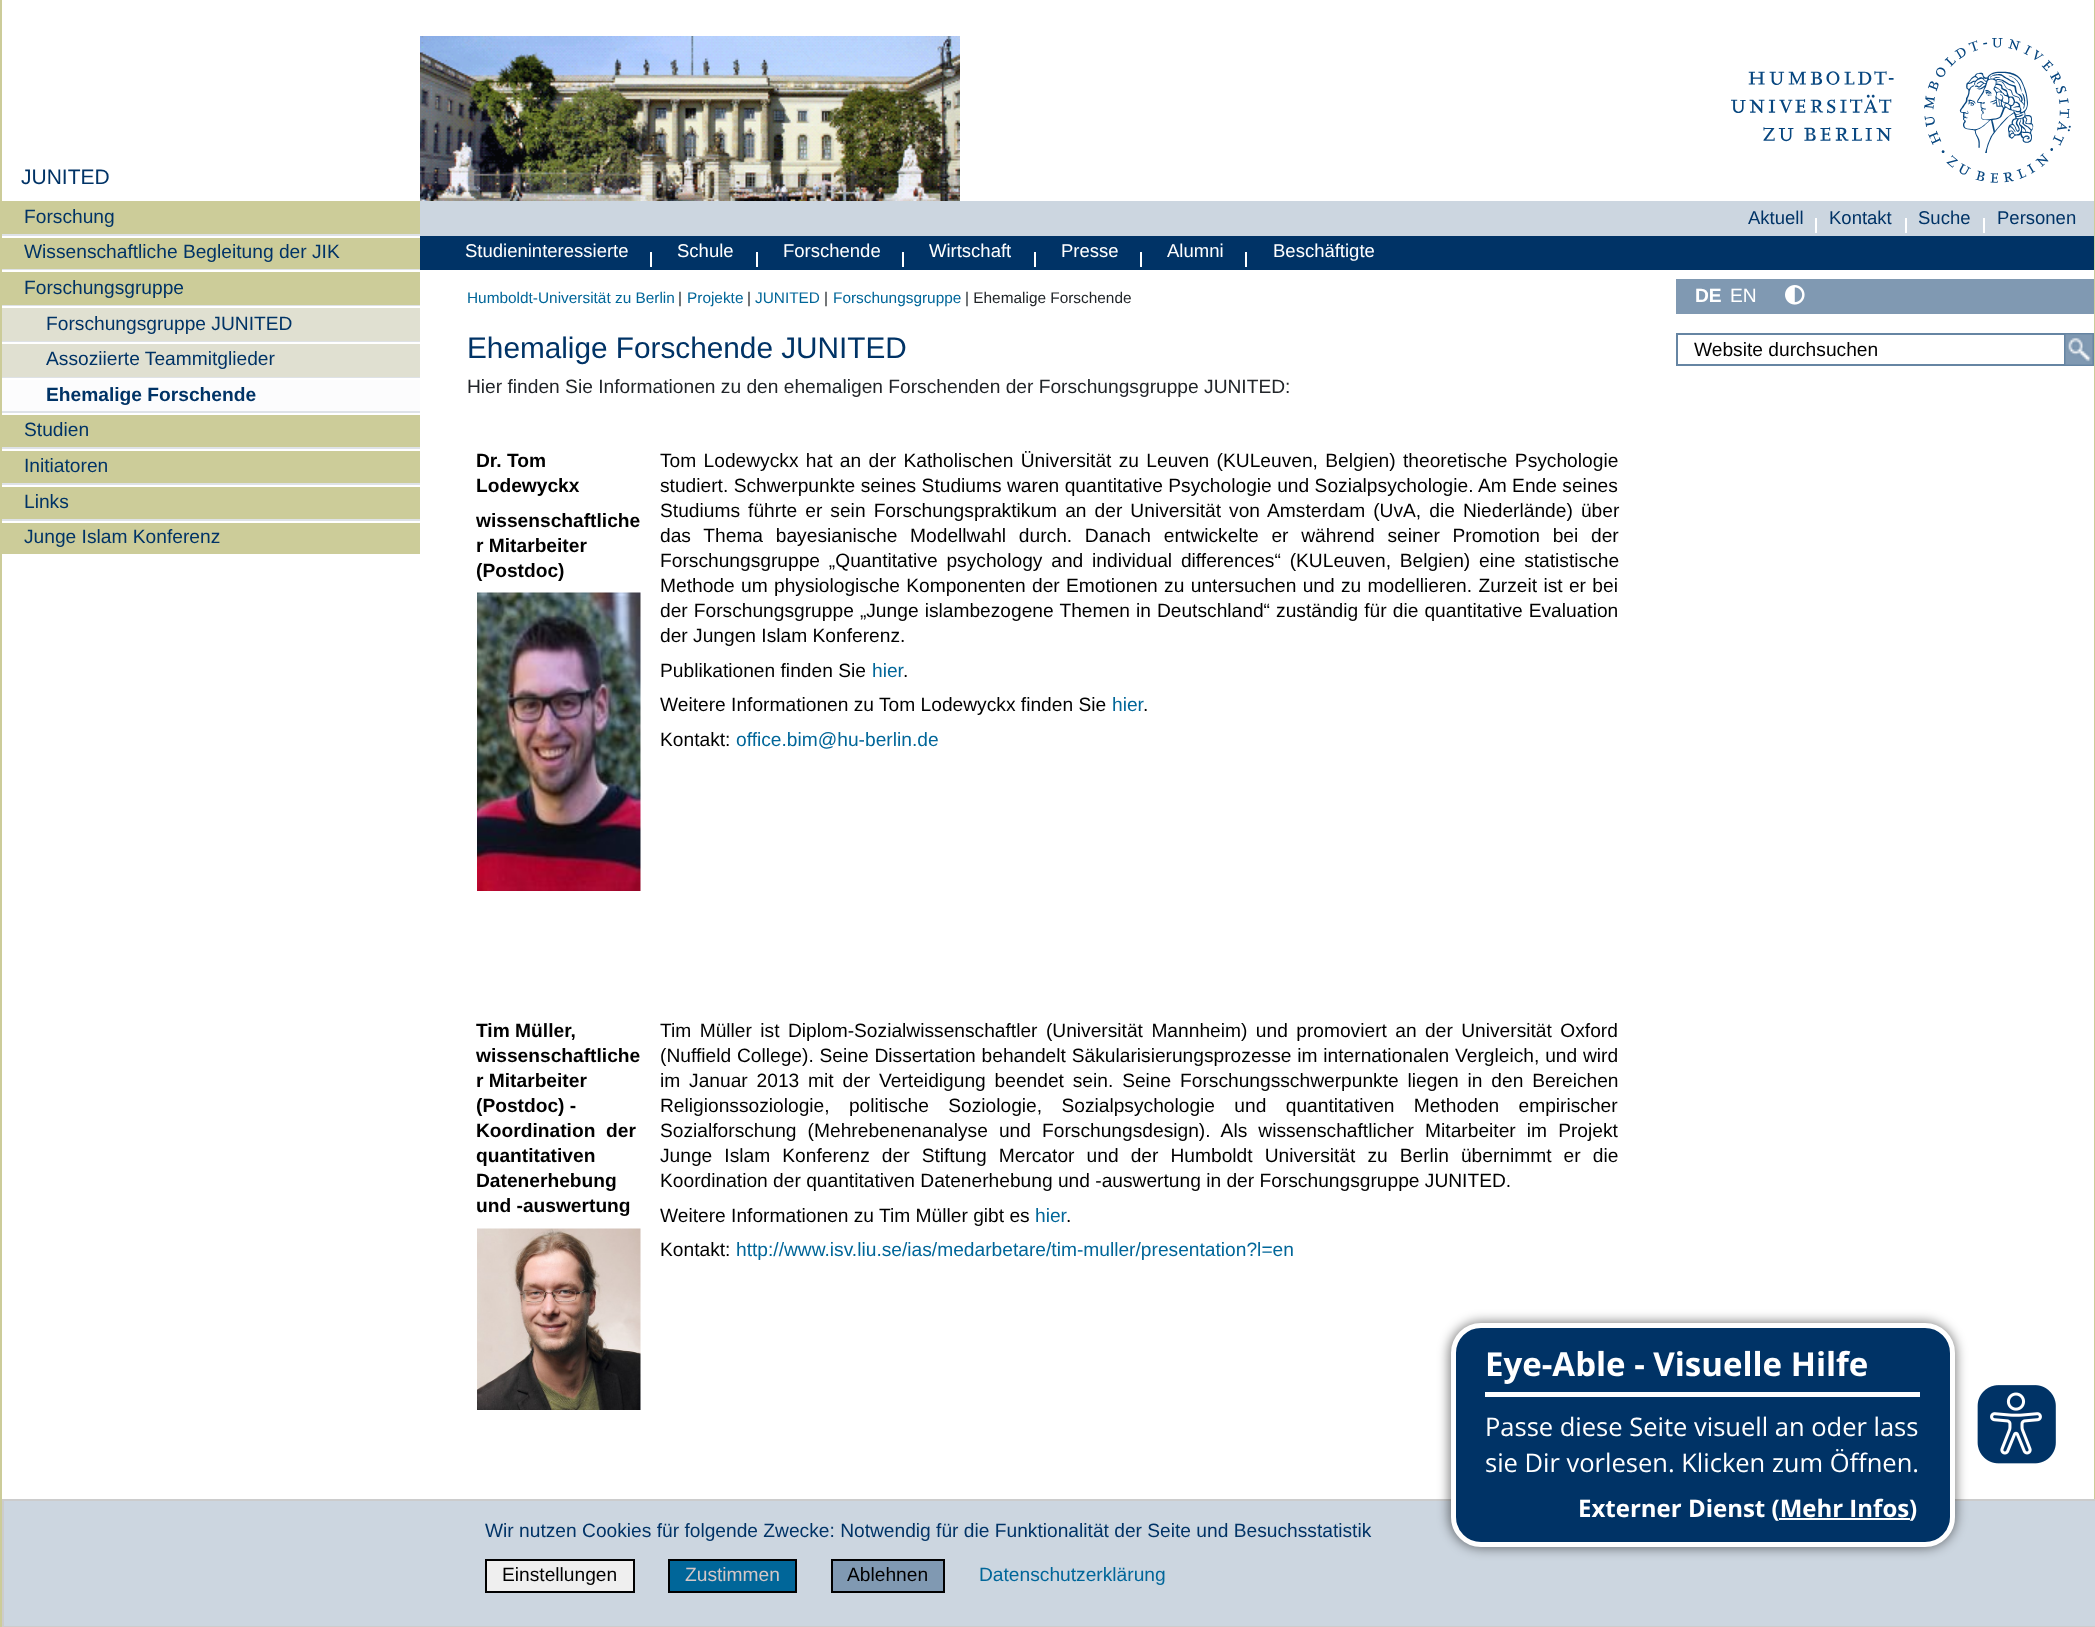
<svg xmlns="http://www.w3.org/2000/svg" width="2095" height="1627">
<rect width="100%" height="100%" fill="#fff"/>
<image x="420" y="36" width="540" height="165" href="media/1.png"/>
<image x="1731" y="38" width="340" height="145" href="media/2.png"/>
<rect x="2094" width="1" height="1499" fill="#cc9"/>
<rect width="2" height="1627" fill="#cc9"/>
<text x="21" y="184" style="font-family:Liberation Sans;font-size:21px;fill:#036">JUNITED</text>
<rect x="2" y="201" width="418" height="33" fill="#cc9"/>
<text x="24" y="223" style="font-family:Liberation Sans;font-size:19.2px;fill:#036">Forschung</text>
<rect x="2" y="238" width="418" height="31" fill="#cc9"/>
<rect x="2" y="234" width="418" height="2" fill="#dee2e6"/>
<text x="24" y="258" style="font-family:Liberation Sans;font-size:19.2px;fill:#036">Wissenschaftliche Begleitung der JIK</text>
<rect x="2" y="272" width="418" height="33" fill="#cc9"/>
<rect x="2" y="269" width="418" height="1" fill="#dee2e6"/>
<text x="24" y="294" style="font-family:Liberation Sans;font-size:19.2px;fill:#036">Forschungsgruppe</text>
<rect x="2" y="308" width="418" height="33" fill="#e0e0d1"/>
<rect x="2" y="305" width="418" height="1" fill="#dee2e6"/>
<text x="46" y="330" style="font-family:Liberation Sans;font-size:19.2px;fill:#036">Forschungsgruppe JUNITED</text>
<rect x="2" y="344" width="418" height="33" fill="#e0e0d1"/>
<rect x="2" y="341" width="418" height="1" fill="#dee2e6"/>
<text x="46" y="365" style="font-family:Liberation Sans;font-size:19.2px;fill:#036">Assoziierte Teammitglieder</text>
<rect x="2" y="377" width="418" height="1" fill="#dee2e6"/>
<rect x="2" y="380" width="418" height="31" fill="#fcfcfd"/>
<text x="46" y="401" style="font-family:Liberation Sans;font-size:19.2px;font-weight:bold;fill:#036">Ehemalige Forschende</text>
<rect x="2" y="415" width="418" height="32" fill="#cc9"/>
<rect x="2" y="411" width="418" height="2" fill="#dee2e6"/>
<text x="24" y="436" style="font-family:Liberation Sans;font-size:19.2px;fill:#036">Studien</text>
<rect x="2" y="451" width="418" height="32" fill="#cc9"/>
<rect x="2" y="447" width="418" height="2" fill="#dee2e6"/>
<text x="24" y="472" style="font-family:Liberation Sans;font-size:19.2px;fill:#036">Initiatoren</text>
<rect x="2" y="487" width="418" height="32" fill="#cc9"/>
<rect x="2" y="483" width="418" height="2" fill="#dee2e6"/>
<text x="24" y="508" style="font-family:Liberation Sans;font-size:19.2px;fill:#036">Links</text>
<rect x="2" y="523" width="418" height="31" fill="#cc9"/>
<rect x="2" y="519" width="418" height="2" fill="#dee2e6"/>
<text x="24" y="543" style="font-family:Liberation Sans;font-size:19.2px;fill:#036">Junge Islam Konferenz</text>
<rect x="420" y="201" width="1674" height="35" fill="#ccd6e0"/>
<text x="1748" y="224" style="font-family:Liberation Sans;font-size:18.5px;fill:#036">Aktuell</text>
<rect x="1815" y="218" width="2" height="15" fill="#fff"/>
<text x="1829" y="224" style="font-family:Liberation Sans;font-size:18.5px;fill:#036">Kontakt</text>
<rect x="1905" y="218" width="2" height="15" fill="#fff"/>
<text x="1918" y="224" style="font-family:Liberation Sans;font-size:18.5px;fill:#036">Suche</text>
<rect x="1983" y="218" width="2" height="15" fill="#fff"/>
<text x="1997" y="224" style="font-family:Liberation Sans;font-size:18.5px;fill:#036">Personen</text>
<rect x="420" y="236" width="1674" height="34" fill="#036"/>
<text x="465" y="257" style="font-family:Liberation Sans;font-size:18.5px;fill:#fff">Studieninteressierte</text>
<rect x="650" y="252" width="2" height="15" fill="#fff"/>
<text x="677" y="257" style="font-family:Liberation Sans;font-size:18.5px;fill:#fff">Schule</text>
<rect x="756" y="252" width="2" height="15" fill="#fff"/>
<text x="783" y="257" style="font-family:Liberation Sans;font-size:18.5px;fill:#fff">Forschende</text>
<rect x="902" y="252" width="2" height="15" fill="#fff"/>
<text x="929" y="257" style="font-family:Liberation Sans;font-size:18.5px;fill:#fff">Wirtschaft</text>
<rect x="1034" y="252" width="2" height="15" fill="#fff"/>
<text x="1061" y="257" style="font-family:Liberation Sans;font-size:18.5px;fill:#fff">Presse</text>
<rect x="1140" y="252" width="2" height="15" fill="#fff"/>
<text x="1167" y="257" style="font-family:Liberation Sans;font-size:18.5px;fill:#fff">Alumni</text>
<rect x="1245" y="252" width="2" height="15" fill="#fff"/>
<text x="1273" y="257" style="font-family:Liberation Sans;font-size:18.5px;fill:#fff">Beschäftigte</text>
<text x="467" y="303" style="font-family:Liberation Sans;font-size:15.4px;fill:#069">Humboldt-Universität zu Berlin</text>
<text x="678" y="303" style="font-family:Liberation Sans;font-size:15.4px;fill:#212529">|</text>
<text x="687" y="303" style="font-family:Liberation Sans;font-size:15.4px;fill:#069">Projekte</text>
<text x="747" y="303" style="font-family:Liberation Sans;font-size:15.4px;fill:#212529">|</text>
<text x="755" y="303" style="font-family:Liberation Sans;font-size:15.4px;fill:#069">JUNITED</text>
<text x="824" y="303" style="font-family:Liberation Sans;font-size:15.4px;fill:#212529">|</text>
<text x="833" y="303" style="font-family:Liberation Sans;font-size:15.4px;fill:#069">Forschungsgruppe</text>
<text x="965" y="303" style="font-family:Liberation Sans;font-size:15.4px;fill:#212529">| Ehemalige Forschende</text>
<text x="467" y="358" style="font-family:Liberation Sans;font-size:29.75px;fill:#036">Ehemalige Forschende JUNITED</text>
<text x="467" y="393" style="font-family:Liberation Sans;font-size:19.2px;fill:#212529">Hier finden Sie Informationen zu den ehemaligen Forschenden der Forschungsgruppe JUNITED:</text>
<text x="476" y="467" style="font-family:Liberation Sans;font-size:19.2px;font-weight:bold;fill:#000">Dr. Tom</text>
<text x="476" y="492" style="font-family:Liberation Sans;font-size:19.2px;font-weight:bold;fill:#000">Lodewyckx</text>
<text x="476" y="527" style="font-family:Liberation Sans;font-size:19.2px;font-weight:bold;fill:#000">wissenschaftliche</text>
<text x="476" y="552" style="font-family:Liberation Sans;font-size:19.2px;font-weight:bold;fill:#000">r Mitarbeiter</text>
<text x="476" y="577" style="font-family:Liberation Sans;font-size:19.2px;font-weight:bold;fill:#000">(Postdoc)</text>
<image x="477" y="592" width="164" height="299" href="media/3.png"/>
<text x="660" y="467" word-spacing="2" style="font-family:Liberation Sans;font-size:19.2px;fill:#000">Tom Lodewyckx hat an der Katholischen Üniversität zu Leuven (KULeuven, Belgien) theoretische Psychologie</text>
<text x="660" y="492" word-spacing="0.1" style="font-family:Liberation Sans;font-size:19.2px;fill:#000">studiert. Schwerpunkte seines Studiums waren quantitative Psychologie und Sozialpsychologie. Am Ende seines</text>
<text x="660" y="517" word-spacing="2.75" style="font-family:Liberation Sans;font-size:19.2px;fill:#000">Studiums führte er sein Forschungspraktikum an der Universität von Amsterdam (UvA, die Niederlände) über</text>
<text x="660" y="542" word-spacing="7.4" style="font-family:Liberation Sans;font-size:19.2px;fill:#000">das Thema bayesianische Modellwahl durch. Danach entwickelte er während seiner Promotion bei der</text>
<text x="660" y="567" word-spacing="3.5" style="font-family:Liberation Sans;font-size:19.2px;fill:#000">Forschungsgruppe „Quantitative psychology and individual differences“ (KULeuven, Belgien) eine statistische</text>
<text x="660" y="592" word-spacing="1" style="font-family:Liberation Sans;font-size:19.2px;fill:#000">Methode um physiologische Komponenten der Emotionen zu untersuchen und zu modellieren. Zurzeit ist er bei</text>
<text x="660" y="617" word-spacing="0.75" style="font-family:Liberation Sans;font-size:19.2px;fill:#000">der Forschungsgruppe „Junge islambezogene Themen in Deutschland“ zuständig für die quantitative Evaluation</text>
<text x="660" y="642" style="font-family:Liberation Sans;font-size:19.2px;fill:#000">der Jungen Islam Konferenz.</text>
<text x="660" y="677" style="font-family:Liberation Sans;font-size:19.2px;fill:#000">Publikationen finden Sie</text>
<text x="872" y="677" style="font-family:Liberation Sans;font-size:19.2px;fill:#069">hier</text>
<text x="903" y="677" style="font-family:Liberation Sans;font-size:19.2px;fill:#000">.</text>
<text x="660" y="711" style="font-family:Liberation Sans;font-size:19.2px;fill:#000">Weitere Informationen zu Tom Lodewyckx finden Sie</text>
<text x="1112" y="711" style="font-family:Liberation Sans;font-size:19.2px;fill:#069">hier</text>
<text x="1143" y="711" style="font-family:Liberation Sans;font-size:19.2px;fill:#000">.</text>
<text x="660" y="746" style="font-family:Liberation Sans;font-size:19.2px;fill:#000">Kontakt:</text>
<text x="736" y="746" style="font-family:Liberation Sans;font-size:19.2px;fill:#069">office.bim@hu-berlin.de</text>
<text x="476" y="1037" style="font-family:Liberation Sans;font-size:19.2px;font-weight:bold;fill:#000">Tim Müller,</text>
<text x="476" y="1062" style="font-family:Liberation Sans;font-size:19.2px;font-weight:bold;fill:#000">wissenschaftliche</text>
<text x="476" y="1087" style="font-family:Liberation Sans;font-size:19.2px;font-weight:bold;fill:#000">r Mitarbeiter</text>
<text x="476" y="1112" style="font-family:Liberation Sans;font-size:19.2px;font-weight:bold;fill:#000">(Postdoc) -</text>
<text x="476" y="1137" style="font-family:Liberation Sans;font-size:19.2px;font-weight:bold;fill:#000" xml:space="preserve">Koordination  der</text>
<text x="476" y="1162" style="font-family:Liberation Sans;font-size:19.2px;font-weight:bold;fill:#000">quantitativen</text>
<text x="476" y="1187" style="font-family:Liberation Sans;font-size:19.2px;font-weight:bold;fill:#000">Datenerhebung</text>
<text x="476" y="1212" style="font-family:Liberation Sans;font-size:19.2px;font-weight:bold;fill:#000">und -auswertung</text>
<image x="477" y="1228" width="164" height="182" href="media/4.png"/>
<text x="660" y="1037" word-spacing="3.1" style="font-family:Liberation Sans;font-size:19.2px;fill:#000">Tim Müller ist Diplom-Sozialwissenschaftler (Universität Mannheim) und promoviert an der Universität Oxford</text>
<text x="660" y="1062" word-spacing="0.5" style="font-family:Liberation Sans;font-size:19.2px;fill:#000">(Nuffield College). Seine Dissertation behandelt Säkularisierungsprozesse im internationalen Vergleich, und wird</text>
<text x="660" y="1087" word-spacing="3.5" style="font-family:Liberation Sans;font-size:19.2px;fill:#000">im Januar 2013 mit der Verteidigung beendet sein. Seine Forschungsschwerpunkte liegen in den Bereichen</text>
<text x="660" y="1112" word-spacing="14" style="font-family:Liberation Sans;font-size:19.2px;fill:#000">Religionssoziologie, politische Soziologie, Sozialpsychologie und quantitativen Methoden empirischer</text>
<text x="660" y="1137" word-spacing="5.75" style="font-family:Liberation Sans;font-size:19.2px;fill:#000">Sozialforschung (Mehrebenenanalyse und Forschungsdesign). Als wissenschaftlicher Mitarbeiter im Projekt</text>
<text x="660" y="1162" word-spacing="6.75" style="font-family:Liberation Sans;font-size:19.2px;fill:#000">Junge Islam Konferenz der Stiftung Mercator und der Humboldt Universität zu Berlin übernimmt er die</text>
<text x="660" y="1187" style="font-family:Liberation Sans;font-size:19.2px;fill:#000">Koordination der quantitativen Datenerhebung und -auswertung in der Forschungsgruppe JUNITED.</text>
<text x="660" y="1222" style="font-family:Liberation Sans;font-size:19.2px;fill:#000">Weitere Informationen zu Tim Müller gibt es</text>
<text x="1035" y="1222" style="font-family:Liberation Sans;font-size:19.2px;fill:#069">hier</text>
<text x="1066" y="1222" style="font-family:Liberation Sans;font-size:19.2px;fill:#000">.</text>
<text x="660" y="1256" style="font-family:Liberation Sans;font-size:19.2px;fill:#000">Kontakt:</text>
<text x="736" y="1256" style="font-family:Liberation Sans;font-size:19.2px;fill:#069">http://www.isv.liu.se/ias/medarbetare/tim-muller/presentation?l=en</text>
<rect x="1676" y="279" width="418" height="35" fill="#8099b2"/>
<text x="1695" y="302" style="font-family:Liberation Sans;font-size:19.2px;font-weight:bold;fill:#fff">DE</text>
<text x="1730" y="302" style="font-family:Liberation Sans;font-size:19.2px;fill:#fff">EN</text>
<image x="1785" y="285" width="20" height="20" href="media/5.png"/>
<rect x="1677" y="334" width="416" height="31" fill="none" stroke="#6685a3" stroke-width="2"/>
<text x="1694" y="356" style="font-family:Liberation Sans;font-size:19.2px;fill:#000">Website durchsuchen</text>
<rect x="2065" y="334" width="28" height="31" fill="none" stroke="#6685a3" stroke-width="2"/>
<image x="2065" y="334" width="28" height="31" href="media/6.png"/>
<rect x="3" y="1500" width="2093" height="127" fill="#ccd6e0" stroke="#ccc" stroke-width="2"/>
<rect x="1449" y="1322" width="507" height="226" rx="32" fill="#00000080" filter="blur(6px)"/>
<rect x="1453.5" y="1325.5" width="499" height="219" rx="27.5" fill="#036" stroke="#fff" stroke-width="5"/>
<rect x="1485" y="1392" width="435" height="5" fill="#fff"/>
<text x="1485" y="1376" style="font-family:Open Sans;font-size:33px;font-weight:bold;fill:#fff">Eye-Able - Visuelle Hilfe</text>
<text x="1485" y="1436" style="font-family:Open Sans;font-size:25.5px;fill:#fff">Passe diese Seite visuell an oder lass</text>
<text x="1485" y="1472" style="font-family:Open Sans;font-size:25.5px;fill:#fff">sie Dir vorlesen. Klicken zum Öffnen.</text>
<text x="1578" y="1517" style="font-family:Open Sans;font-size:24px;font-weight:bold;fill:#fff">Externer Dienst (Mehr Infos</text>
<rect x="1779" y="1518" width="131" height="2" fill="#fff"/>
<text x="1909" y="1517" style="font-family:Open Sans;font-size:24px;font-weight:bold;fill:#fff">)</text>
<image x="1977" y="1385" width="79" height="79" href="media/7.png"/>
<text x="485" y="1537" style="font-family:Liberation Sans;font-size:19.2px;fill:#036">Wir nutzen Cookies für folgende Zwecke: Notwendig für die Funktionalität der Seite und Besuchsstatistik</text>
<rect x="486" y="1560" width="148" height="32" fill="#efefef" stroke="#000" stroke-width="2"/>
<text x="502" y="1581" style="font-family:Liberation Sans;font-size:19.2px;fill:#000">Einstellungen</text>
<rect x="669" y="1560" width="127" height="32" fill="#069" stroke="#000" stroke-width="2"/>
<text x="685" y="1581" style="font-family:Liberation Sans;font-size:19.2px;fill:#d5c7c7">Zustimmen</text>
<rect x="832" y="1560" width="112" height="32" fill="#8099b2" stroke="#000" stroke-width="2"/>
<text x="847" y="1581" style="font-family:Liberation Sans;font-size:19.2px;fill:#000">Ablehnen</text>
<text x="979" y="1581" style="font-family:Liberation Sans;font-size:19.2px;fill:#069">Datenschutzerklärung</text>
</svg>
